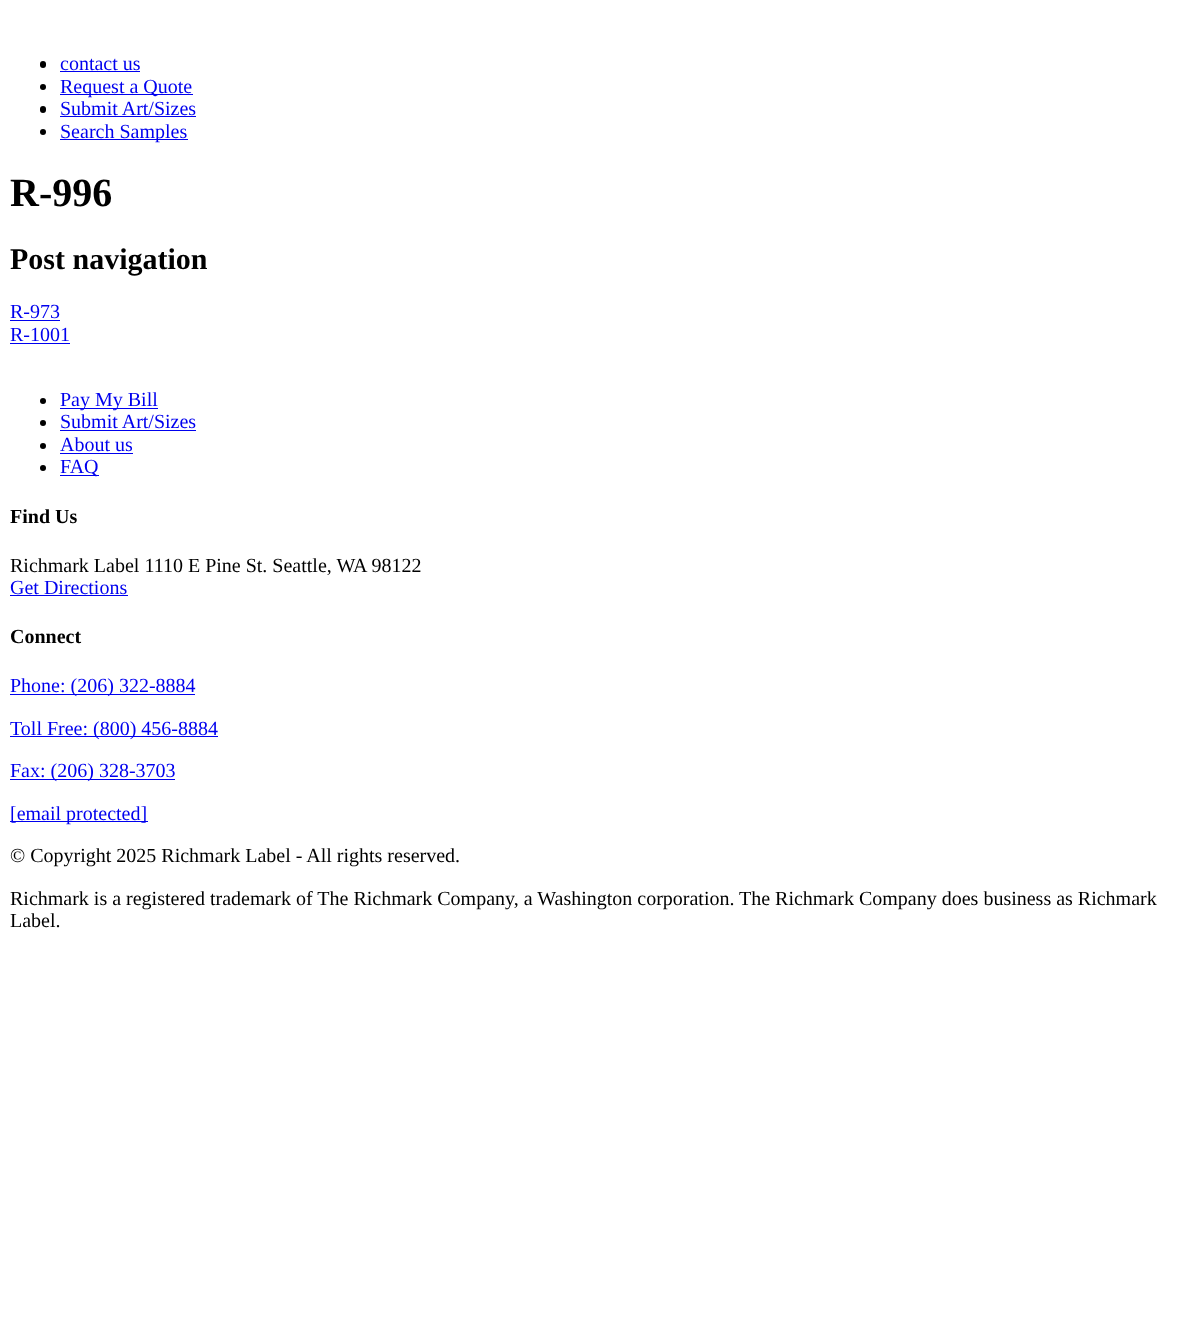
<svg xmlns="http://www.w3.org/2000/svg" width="1184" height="1335">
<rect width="100%" height="100%" fill="#fff"/>
<rect x="40" y="61" width="6" height="7" rx="3" fill="#000"/>
<text x="60" y="70" style="font-family:Liberation Serif;font-size:20px;fill:#00e">contact us</text>
<rect x="60" y="71" width="80" height="1" fill="#00e"/>
<circle cx="43" cy="87" r="3" fill="#000"/>
<rect x="60" y="94" width="133" height="1" fill="#00e"/>
<text x="60" y="93" style="font-family:Liberation Serif;font-size:20px;fill:#00e">Request a Quote</text>
<rect x="40" y="106" width="6" height="7" rx="3" fill="#000"/>
<text x="60" y="115" style="font-family:Liberation Serif;font-size:20px;fill:#00e">Submit Art/Sizes</text>
<rect x="60" y="116" width="136" height="1" fill="#00e"/>
<circle cx="43" cy="132" r="3" fill="#000"/>
<rect x="60" y="139" width="128" height="1" fill="#00e"/>
<text x="60" y="138" style="font-family:Liberation Serif;font-size:20px;fill:#00e">Search Samples</text>
<text x="10" y="206" style="font-family:Liberation Serif;font-size:40px;font-weight:bold;fill:#000">R-996</text>
<text x="10" y="269" style="font-family:Liberation Serif;font-size:30px;font-weight:bold;fill:#000">Post navigation</text>
<text x="10" y="318" style="font-family:Liberation Serif;font-size:20px;fill:#00e">R-973</text>
<rect x="10" y="320" width="50" height="1" fill="#00e"/>
<text x="10" y="341" style="font-family:Liberation Serif;font-size:20px;fill:#00e">R-1001</text>
<rect x="10" y="343" width="60" height="1" fill="#00e"/>
<circle cx="43" cy="401" r="3" fill="#000"/>
<rect x="60" y="408" width="98" height="1" fill="#00e"/>
<text x="60" y="406" style="font-family:Liberation Serif;font-size:20px;fill:#00e">Pay My Bill</text>
<circle cx="43" cy="423" r="3" fill="#000"/>
<text x="60" y="428" style="font-family:Liberation Serif;font-size:20px;fill:#00e">Submit Art/Sizes</text>
<rect x="60" y="430" width="136" height="1" fill="#00e"/>
<circle cx="43" cy="446" r="3" fill="#000"/>
<text x="60" y="451" style="font-family:Liberation Serif;font-size:20px;fill:#00e">About us</text>
<rect x="60" y="453" width="73" height="1" fill="#00e"/>
<circle cx="43" cy="468" r="3" fill="#000"/>
<rect x="60" y="475" width="39" height="1" fill="#00e"/>
<text x="60" y="473" style="font-family:Liberation Serif;font-size:20px;fill:#00e">FAQ</text>
<text x="10" y="523" style="font-family:Liberation Serif;font-size:20px;font-weight:bold;fill:#000">Find Us</text>
<text x="10" y="572" style="font-family:Liberation Serif;font-size:20px;fill:#000">Richmark Label 1110 E Pine St. Seattle, WA 98122</text>
<text x="10" y="594" style="font-family:Liberation Serif;font-size:20px;fill:#00e">Get Directions</text>
<rect x="10" y="595" width="118" height="1" fill="#00e"/>
<text x="10" y="643" style="font-family:Liberation Serif;font-size:20px;font-weight:bold;fill:#000">Connect</text>
<rect x="10" y="694" width="185" height="1" fill="#00e"/>
<text x="10" y="692" style="font-family:Liberation Serif;font-size:20px;fill:#00e">Phone: (206) 322-8884</text>
<rect x="10" y="736" width="208" height="1" fill="#00e"/>
<text x="10" y="735" style="font-family:Liberation Serif;font-size:20px;fill:#00e">Toll Free: (800) 456-8884</text>
<rect x="10" y="779" width="165" height="1" fill="#00e"/>
<text x="10" y="777" style="font-family:Liberation Serif;font-size:20px;fill:#00e">Fax: (206) 328-3703</text>
<rect x="10" y="821" width="138" height="1" fill="#00e"/>
<text x="10" y="820" style="font-family:Liberation Serif;font-size:20px;fill:#00e">[email protected]</text>
<text x="10" y="862" style="font-family:Liberation Serif;font-size:20px;fill:#000">© Copyright 2025 Richmark Label - All rights reserved.</text>
<text x="10" y="905" style="font-family:Liberation Serif;font-size:20px;fill:#000">Richmark is a registered trademark of The Richmark Company, a Washington corporation.</text>
<text x="739" y="905" style="font-family:Liberation Serif;font-size:20px;fill:#000">The Richmark Company does business as Richmark</text>
<text x="10" y="927" style="font-family:Liberation Serif;font-size:20px;fill:#000">Label.</text>
</svg>
